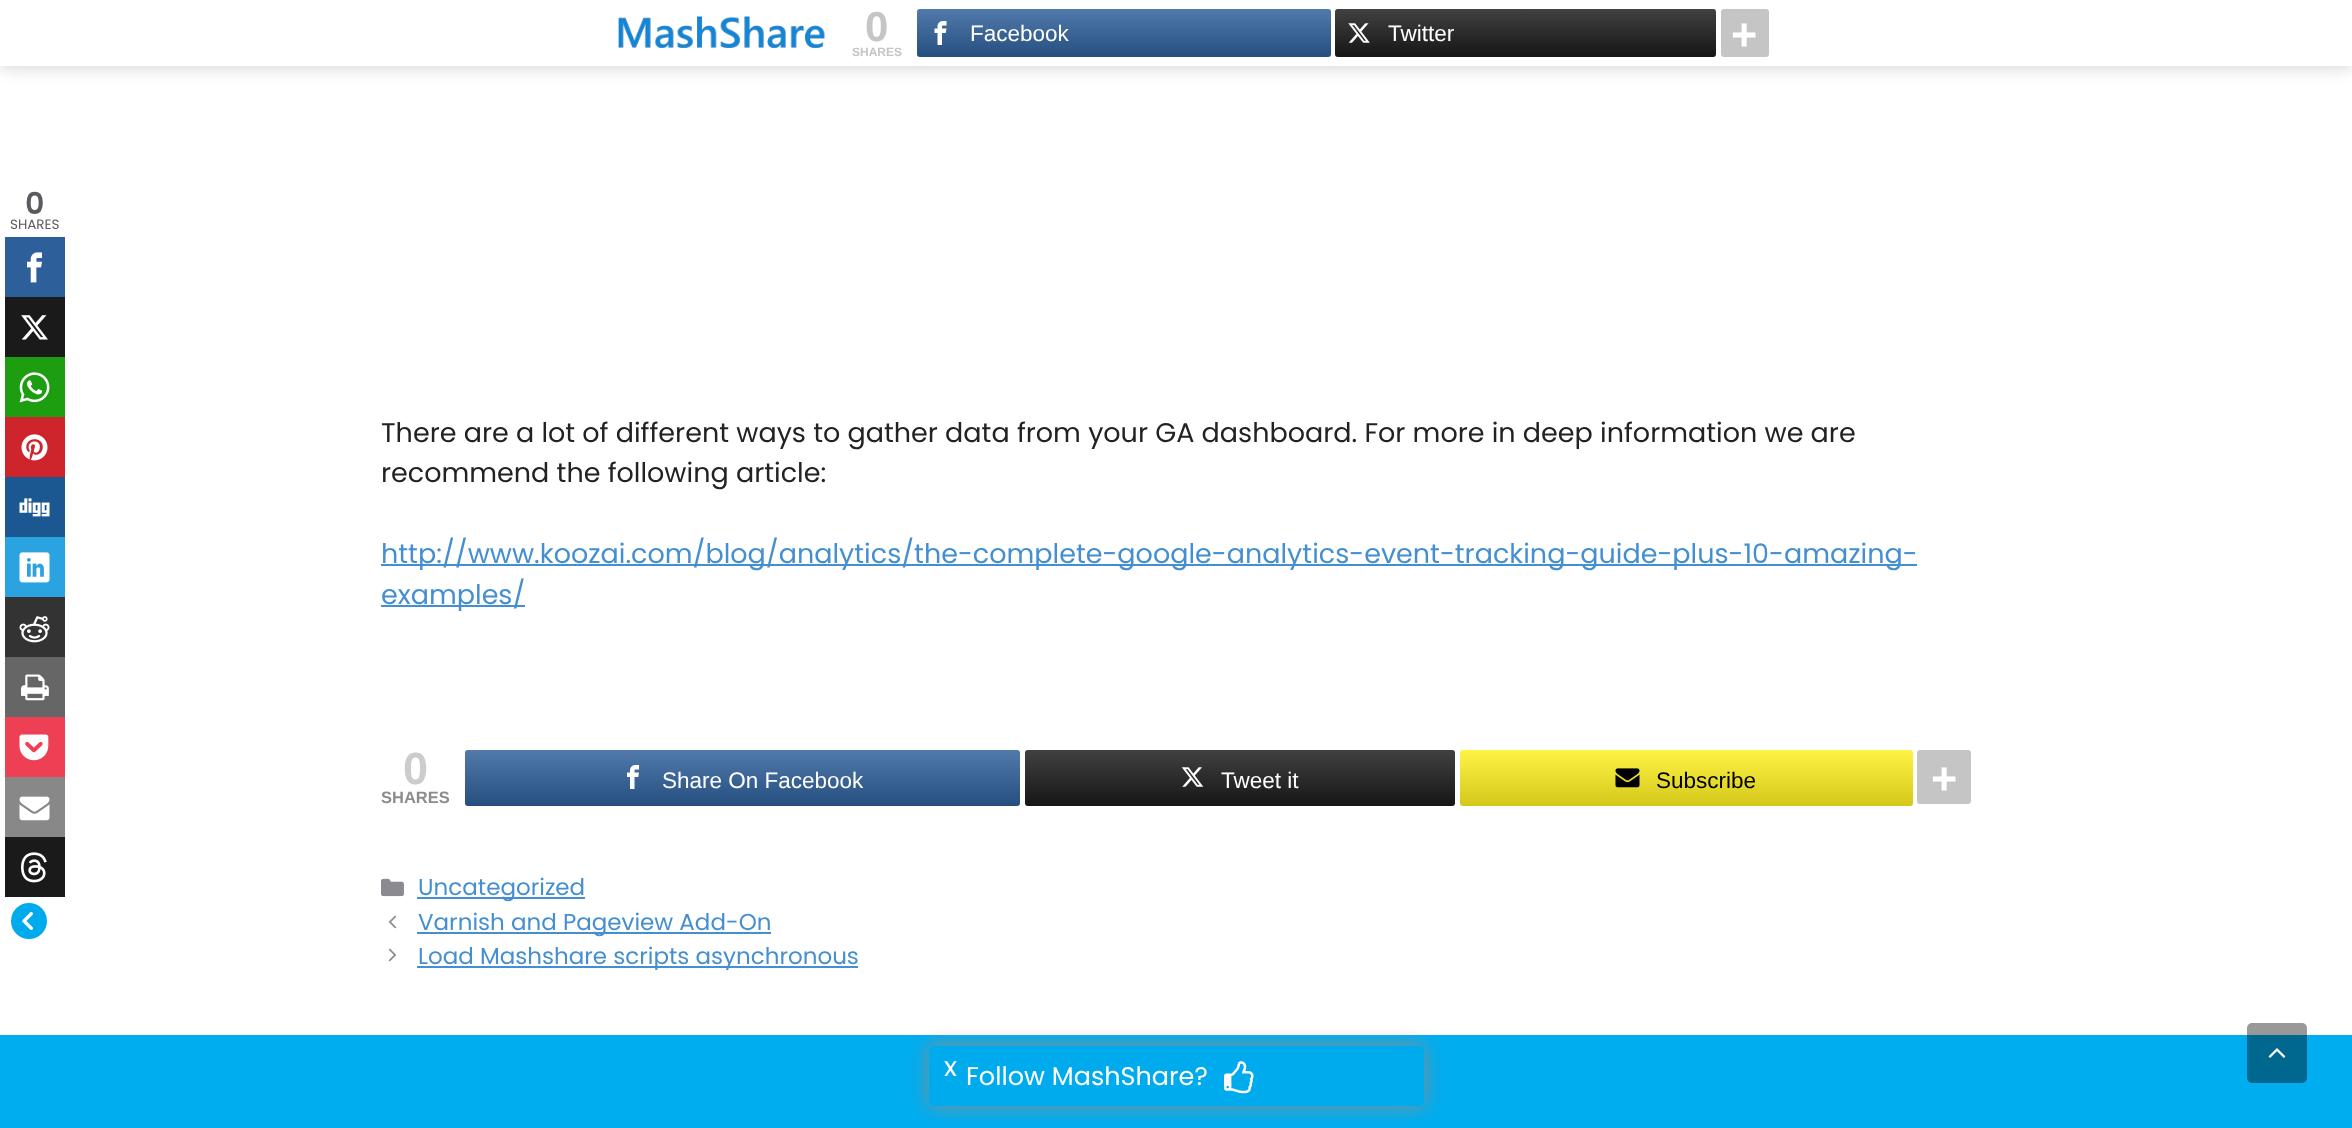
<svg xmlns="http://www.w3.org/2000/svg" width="2352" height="1128">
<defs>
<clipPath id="clip1"><rect x="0" y="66" width="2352" height="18"/></clipPath>
<linearGradient id="g1" gradientUnits="userSpaceOnUse" x1="1124" y1="57" x2="1124" y2="9"><stop offset="0" stop-color="#000" stop-opacity="0.17"/><stop offset="1" stop-color="#fff" stop-opacity="0.17"/></linearGradient>
<linearGradient id="g2" gradientUnits="userSpaceOnUse" x1="1526" y1="57" x2="1526" y2="9"><stop offset="0" stop-color="#000" stop-opacity="0.17"/><stop offset="1" stop-color="#fff" stop-opacity="0.17"/></linearGradient>
<linearGradient id="g3" gradientUnits="userSpaceOnUse" x1="743" y1="806" x2="743" y2="750"><stop offset="0" stop-color="#000" stop-opacity="0.17"/><stop offset="1" stop-color="#fff" stop-opacity="0.17"/></linearGradient>
<linearGradient id="g4" gradientUnits="userSpaceOnUse" x1="1240" y1="806" x2="1240" y2="750"><stop offset="0" stop-color="#000" stop-opacity="0.17"/><stop offset="1" stop-color="#fff" stop-opacity="0.17"/></linearGradient>
<linearGradient id="g5" gradientUnits="userSpaceOnUse" x1="1686" y1="806" x2="1686" y2="750"><stop offset="0" stop-color="#000" stop-opacity="0.17"/><stop offset="1" stop-color="#fff" stop-opacity="0.17"/></linearGradient>
</defs>
<rect width="100%" height="100%" fill="#fff"/>
<g clip-path="url(#clip1)">
<rect width="2352" height="66" fill="#ccc" filter="blur(9px)"/>
</g>
<image x="618" y="16" width="207" height="32" href="media/1.png"/>
<text x="865" y="41" style="font-family:Liberation Sans;font-size:42px;font-weight:bold;fill:#c5c5c5">0</text>
<text x="852" y="56" style="font-family:Liberation Sans;font-size:12px;font-weight:bold;fill:#c5c5c5">SHARES</text>
<rect x="917" y="9" width="414" height="48" rx="3" fill="#2d5f9a"/>
<rect x="917" y="9" width="414" height="48" rx="3" fill="url(#g1)"/>
<image x="934" y="21" width="13" height="24" href="media/2.png"/>
<text x="970" y="41" style="font-family:Liberation Sans;font-size:22.5px;fill:#fff">Facebook</text>
<rect x="1335" y="9" width="381" height="48" rx="3" fill="#1a1a1a"/>
<rect x="1335" y="9" width="381" height="48" rx="3" fill="url(#g2)"/>
<image x="1348" y="23" width="22" height="20" href="media/3.png"/>
<text x="1388" y="41" style="font-family:Liberation Sans;font-size:22.5px;fill:#fff">Twitter</text>
<rect x="1721" y="9" width="48" height="48" rx="3" fill="#c5c5c5"/>
<text x="1731" y="50" style="font-family:Liberation Sans;font-size:45px;font-weight:bold;fill:#fff">+</text>
<text x="25" y="214" style="font-family:Poppins;font-size:30px;font-weight:600;fill:#5a5a5f">0</text>
<text x="10" y="229" style="font-family:Poppins;font-size:13.5px;fill:#5a5a5f">SHARES</text>
<rect x="5" y="237" width="60" height="60" fill="#2d5f9a"/>
<image x="27" y="252" width="15" height="31" href="media/4.png"/>
<rect x="5" y="297" width="60" height="60" fill="#1a1a1a"/>
<image x="21" y="315" width="27" height="25" href="media/5.png"/>
<rect x="5" y="357" width="60" height="60" fill="#1d9e11"/>
<image x="19" y="372" width="31" height="31" href="media/6.png"/>
<rect x="5" y="417" width="60" height="60" fill="#cd252b"/>
<image x="21" y="434" width="27" height="27" href="media/7.png"/>
<rect x="5" y="477" width="60" height="60" fill="#1b5791"/>
<image x="19" y="498" width="31" height="19" href="media/8.png"/>
<rect x="5" y="537" width="60" height="60" fill="#2ba3e1"/>
<image x="19" y="552" width="31" height="31" href="media/9.png"/>
<rect x="5" y="597" width="60" height="60" fill="#333"/>
<image x="19" y="616" width="31" height="27" href="media/10.png"/>
<rect x="5" y="657" width="60" height="60" fill="#666"/>
<image x="21" y="674" width="28" height="27" href="media/11.png"/>
<rect x="5" y="717" width="60" height="60" fill="#ee4055"/>
<image x="19" y="734" width="30" height="27" href="media/12.png"/>
<rect x="5" y="777" width="60" height="60" fill="#888"/>
<image x="19" y="796" width="31" height="25" href="media/13.png"/>
<rect x="5" y="837" width="60" height="60" fill="#1a1a1a"/>
<image x="21" y="852" width="26" height="31" href="media/14.png"/>
<circle cx="29" cy="921" r="18" fill="#00abed"/>
<image x="22" y="912" width="11" height="18" href="media/15.png"/>
<text x="381" y="442" style="font-family:Poppins;font-size:27px;fill:#222">There are a lot of different ways to gather data from your GA dashboard. For more in deep information we are</text>
<text x="381" y="482" style="font-family:Poppins;font-size:27px;fill:#222">recommend the following article:</text>
<rect x="381" y="564" width="1536" height="2" fill="#448fd1"/>
<text x="381" y="563" style="font-family:Poppins;font-size:27px;fill:#448fd1">http://www.koozai.com/blog/analytics/the-complete-google-analytics-event-tracking-guide-plus-10-amazing-</text>
<rect x="381" y="605" width="144" height="2" fill="#448fd1"/>
<text x="381" y="604" style="font-family:Poppins;font-size:27px;fill:#448fd1">examples/</text>
<text x="403" y="784" style="font-family:Liberation Sans;font-size:45px;font-weight:bold;fill:#ccc">0</text>
<text x="381" y="803" style="font-family:Liberation Sans;font-size:16.5px;font-weight:bold;fill:#8a8c8e">SHARES</text>
<rect x="465" y="750" width="555" height="56" rx="3" fill="#2d5f9a"/>
<rect x="465" y="750" width="555" height="56" rx="3" fill="url(#g3)"/>
<image x="627" y="765" width="12" height="24" href="media/16.png"/>
<text x="662" y="788" style="font-family:Liberation Sans;font-size:22.5px;fill:#fff">Share On Facebook</text>
<rect x="1025" y="750" width="430" height="56" rx="3" fill="#1a1a1a"/>
<rect x="1025" y="750" width="430" height="56" rx="3" fill="url(#g4)"/>
<image x="1181" y="767" width="23" height="20" href="media/17.png"/>
<text x="1221" y="788" style="font-family:Liberation Sans;font-size:22.5px;fill:#fff">Tweet it</text>
<rect x="1460" y="750" width="453" height="56" rx="3" fill="#fff120"/>
<rect x="1460" y="750" width="453" height="56" rx="3" fill="url(#g5)"/>
<image x="1615" y="768" width="25" height="20" href="media/18.png"/>
<text x="1656" y="788" style="font-family:Liberation Sans;font-size:22.5px;fill:#000">Subscribe</text>
<rect x="1917" y="750" width="54" height="54" rx="3" fill="#c5c5c5"/>
<text x="1931" y="794" style="font-family:Liberation Sans;font-size:45px;font-weight:bold;fill:#fff">+</text>
<image x="381" y="878" width="23" height="19" href="media/19.png"/>
<rect x="417" y="897" width="168" height="2" fill="#448fd1"/>
<text x="418" y="895" style="font-family:Poppins;font-size:23px;fill:#448fd1">Uncategorized</text>
<image x="388" y="915" width="9" height="14" href="media/20.png"/>
<rect x="417" y="932" width="354" height="2" fill="#448fd1"/>
<text x="418" y="930" style="font-family:Poppins;font-size:23px;fill:#448fd1">Varnish and Pageview Add-On</text>
<image x="388" y="948" width="8" height="14" href="media/21.png"/>
<rect x="417" y="966" width="441" height="2" fill="#448fd1"/>
<text x="418" y="964" style="font-family:Poppins;font-size:23px;fill:#448fd1">Load Mashshare scripts asynchronous</text>
<rect y="1035" width="2352" height="93" fill="#00adef"/>
<rect x="2247" y="1023" width="60" height="60" rx="5" fill="#00000066"/>
<image x="2268" y="1048" width="18" height="10" href="media/22.png"/>
<rect x="929" y="1046" width="495" height="60" rx="6" fill="#8b8b8b" filter="blur(9px)"/>
<rect x="929" y="1046" width="495" height="60" rx="6" fill="#00abed"/>
<text x="944" y="1076" style="font-family:Poppins;font-size:27px;fill:#fff">x</text>
<text x="966" y="1085" style="font-family:Poppins;font-size:25.5px;fill:#fff">Follow MashShare?</text>
<image x="1224" y="1061" width="30" height="33" href="media/23.png"/>
</svg>
